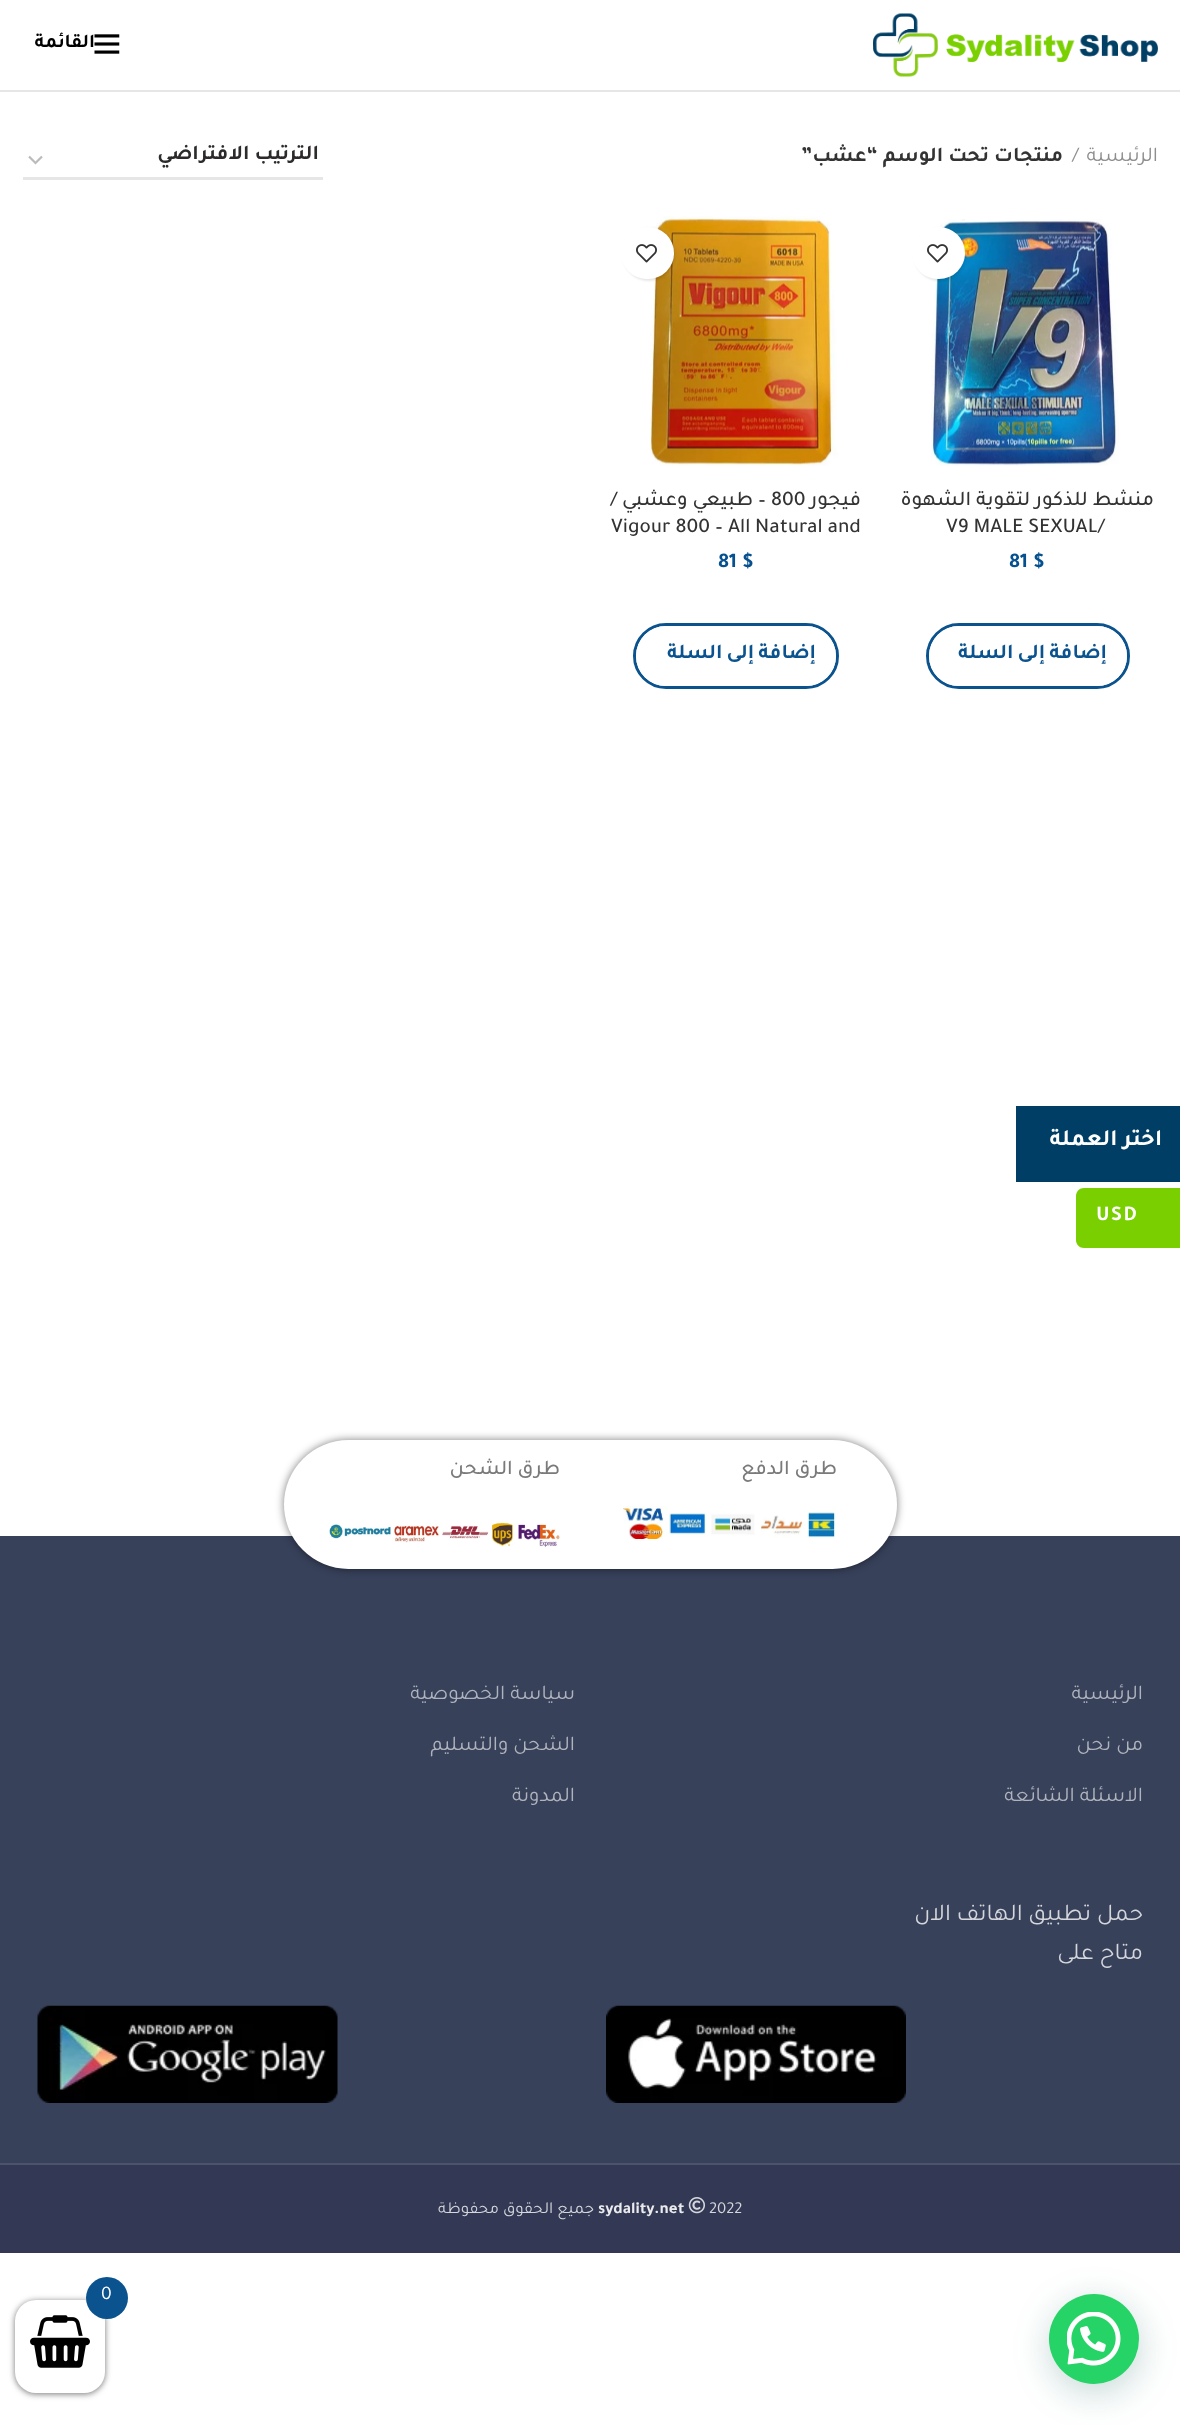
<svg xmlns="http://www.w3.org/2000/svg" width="1180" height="2425">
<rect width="100%" height="100%" fill="#fff"/>
<rect y="90" width="1180" height="2" fill="#e6e6e6"/>
<image x="873" y="13" width="285" height="64" href="media/1.png"/>
<image x="94" y="34" width="26" height="20" href="media/2.png"/>
<text x="95" y="47" style="font-family:Tajawal;font-size:19.5px;font-weight:bold;direction:rtl;fill:#000">القائمة</text>
<text x="1158" y="161" style="font-family:Tajawal;font-size:21px;direction:rtl;fill:#8e8e8e">الرئيسية</text>
<text x="1072" y="161" style="font-family:Tajawal;font-size:21px;fill:#8e8e8e">/</text>
<text x="1063" y="161" style="font-family:Tajawal;font-size:21px;font-weight:bold;direction:rtl;fill:#333">منتجات تحت الوسم “عشب”</text>
<path d="M29 156.5l6.5 6.5l6.5-6.5" fill="none" stroke="#bbb" stroke-width="2.2"/>
<rect x="23" y="177" width="300" height="3" fill="#e6e6e6"/>
<text x="319" y="159" style="font-family:Tajawal;font-size:21px;font-weight:bold;direction:rtl;fill:#2d2a2a">الترتيب الافتراضي</text>
<image x="931" y="219" width="188" height="247" href="media/3.png"/>
<rect x="914" y="228" width="52" height="53" rx="26" fill="#0000001a" filter="blur(1px)"/>
<rect x="912" y="227" width="53" height="52" rx="26" fill="#fff"/>
<image x="927" y="244" width="21" height="19" href="media/4.png"/>
<text x="1154" y="505" style="font-family:Tajawal;font-size:21px;font-weight:500;direction:rtl;fill:#333">منشط للذكور لتقوية الشهوة</text>
<text x="946" y="532" style="font-family:Tajawal;font-size:21px;font-weight:500;fill:#333">V9 MALE SEXUAL/</text>
<text x="1009" y="567" style="font-family:Tajawal;font-size:21px;font-weight:bold;fill:#05508e">81 $</text>
<rect x="927.5" y="624.5" width="201" height="63" rx="31.5" fill="none" stroke="#0b538f" stroke-width="3"/>
<rect x="929" y="626" width="198" height="60" rx="30" fill="#fff"/>
<text x="1107" y="658" word-spacing="-1" style="font-family:Tajawal;font-size:21px;font-weight:bold;letter-spacing:0.5px;direction:rtl;fill:#0b538f">إضافة إلى السلة</text>
<image x="650" y="216" width="188" height="250" href="media/5.png"/>
<rect x="623" y="228" width="52" height="53" rx="26" fill="#0000001a" filter="blur(1px)"/>
<rect x="621" y="227" width="53" height="52" rx="26" fill="#fff"/>
<image x="636" y="244" width="21" height="19" href="media/4.png"/>
<text x="861" y="505" style="font-family:Tajawal;font-size:21px;font-weight:500;direction:rtl;fill:#333">فيجور</text>
<text x="771" y="505" style="font-family:Tajawal;font-size:21px;font-weight:500;fill:#333">800</text>
<text x="766" y="505" style="font-family:Tajawal;font-size:21px;font-weight:500;direction:rtl;fill:#333">– طبيعي وعشبي /</text>
<text x="611" y="532" style="font-family:Tajawal;font-size:21px;font-weight:500;fill:#333">Vigour 800 – All Natural and</text>
<text x="718" y="567" style="font-family:Tajawal;font-size:21px;font-weight:bold;fill:#05508e">81 $</text>
<rect x="634.5" y="624.5" width="203" height="63" rx="31.5" fill="none" stroke="#0b538f" stroke-width="3"/>
<rect x="636" y="626" width="200" height="60" rx="30" fill="#fff"/>
<text x="816" y="658" word-spacing="-1" style="font-family:Tajawal;font-size:21px;font-weight:bold;letter-spacing:0.5px;direction:rtl;fill:#0b538f">إضافة إلى السلة</text>
<rect y="1536" width="1180" height="627" fill="#37415a"/>
<rect x="284" y="1440" width="613" height="129" rx="64.5" fill="#00000080" filter="blur(4px)"/>
<rect x="284" y="1440" width="613" height="129" rx="64.5" fill="#fff"/>
<text x="837" y="1474" style="font-family:Tajawal;font-size:21px;font-weight:500;direction:rtl;fill:#7a7a7a">طرق الدفع</text>
<image x="623" y="1506" width="213" height="33" href="media/6.png"/>
<text x="560" y="1474" style="font-family:Tajawal;font-size:21px;font-weight:500;direction:rtl;fill:#7a7a7a">طرق الشحن</text>
<image x="329" y="1522" width="231" height="26" href="media/7.png"/>
<rect y="2163" width="1180" height="2" fill="#4b546b"/>
<text x="1143" y="1699" style="font-family:Tajawal;font-size:21px;direction:rtl;fill:#afb3bd">الرئيسية</text>
<text x="1143" y="1750" style="font-family:Tajawal;font-size:21px;direction:rtl;fill:#afb3bd">من نحن</text>
<text x="1143" y="1801" style="font-family:Tajawal;font-size:21px;direction:rtl;fill:#afb3bd">الاسئلة الشائعة</text>
<text x="575" y="1699" style="font-family:Tajawal;font-size:21px;direction:rtl;fill:#afb3bd">سياسة الخصوصية</text>
<text x="575" y="1750" style="font-family:Tajawal;font-size:21px;direction:rtl;fill:#afb3bd">الشحن والتسليم</text>
<text x="575" y="1801" style="font-family:Tajawal;font-size:21px;direction:rtl;fill:#afb3bd">المدونة</text>
<text x="1143" y="1920" style="font-family:Tajawal;font-size:24px;direction:rtl;fill:#d6d7dd">حمل تطبيق الهاتف الان</text>
<text x="1143" y="1959" style="font-family:Tajawal;font-size:24px;direction:rtl;fill:#d6d7dd">متاح على</text>
<image x="606" y="2005" width="300" height="98" href="media/8.png"/>
<image x="37" y="2005" width="301" height="98" href="media/9.png"/>
<rect y="2165" width="1180" height="88" fill="#333954"/>
<text x="709" y="2213" style="font-family:Tajawal;font-size:16.75px;fill:#d6d7dd">2022</text>
<image x="688" y="2197" width="17" height="17" href="media/10.png"/>
<text x="598" y="2213" style="font-family:Tajawal;font-size:16.75px;font-weight:bold;fill:#ebebee">sydality.net</text>
<text x="594" y="2213" style="font-family:Tajawal;font-size:16.75px;direction:rtl;fill:#d6d7dd">جميع الحقوق محفوظة</text>
<rect x="1016" y="1106" width="164" height="76" fill="#013e65"/>
<text x="1162" y="1145" style="font-family:Tajawal;font-size:23.25px;font-weight:bold;direction:rtl;fill:#fff">اختر العملة</text>
<path d="M1084 1188h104v60h-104c-4.5 0-8-3.5-8-8v-44c0-4.5 3.5-8 8-8z" fill="#79cf00"/>
<text x="1096" y="1220" style="font-family:Tajawal;font-size:21px;font-weight:bold;letter-spacing:1.5px;fill:#fff">USD</text>
<rect x="1050" y="2303" width="90" height="90" rx="45" fill="#075e543d" filter="blur(18px)"/>
<circle cx="1094" cy="2339" r="45" fill="#25d366"/>
<image x="1067" y="2312" width="54" height="54" href="media/11.png"/>
<rect x="15" y="2301" width="90" height="93" rx="21" fill="#777" filter="blur(3px)"/>
<rect x="15" y="2300" width="90" height="93" rx="21" fill="#fff"/>
<image x="30" y="2315" width="60" height="53" href="media/12.png"/>
<circle cx="107" cy="2298" r="21" fill="#0b538f"/>
<text x="101" y="2299" style="font-family:Tajawal;font-size:19.5px;fill:#fff">0</text>
</svg>
